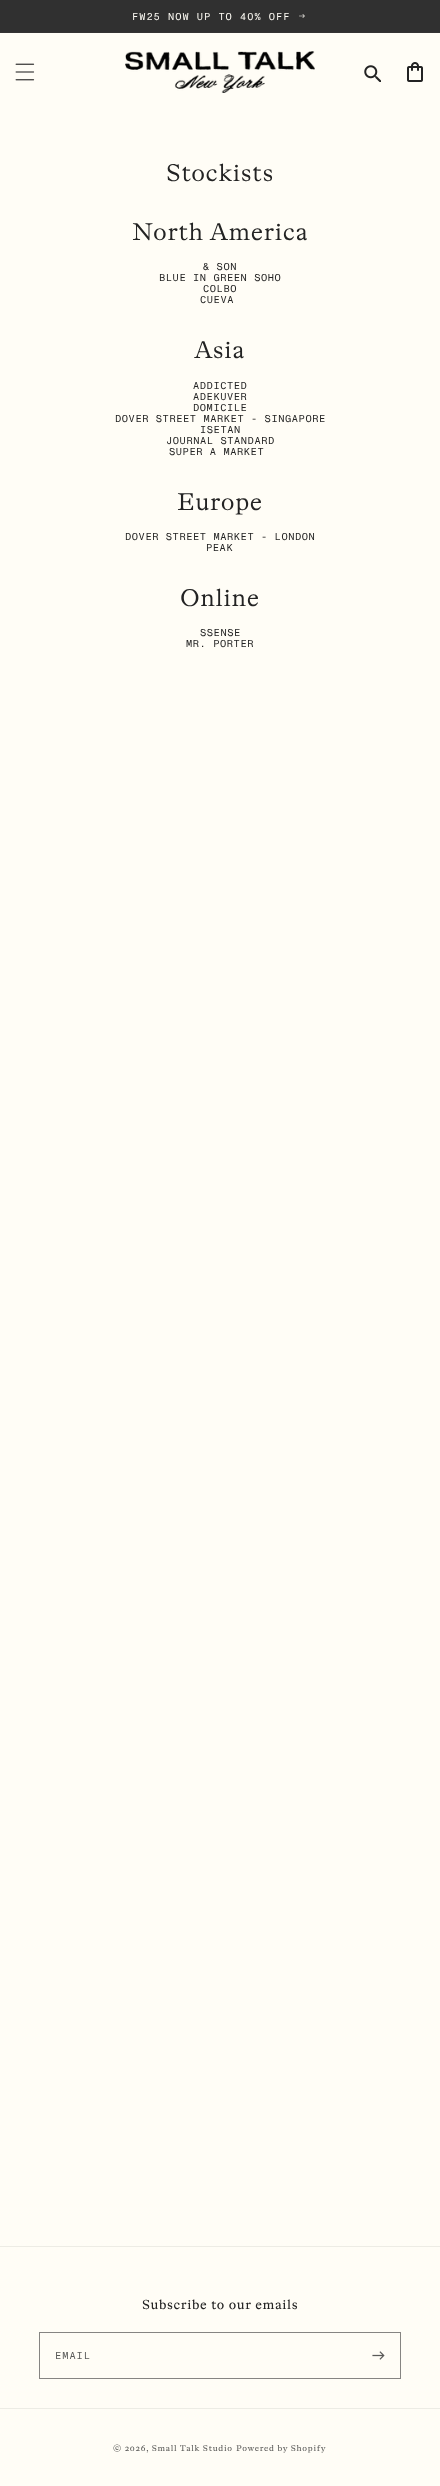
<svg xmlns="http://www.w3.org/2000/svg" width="440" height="2486">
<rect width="100%" height="100%" fill="#fffdf6"/>
<rect y="32" width="440" height="1" fill="#353434"/>
<rect width="440" height="32" fill="#303030"/>
<text x="132" y="20" style="font-family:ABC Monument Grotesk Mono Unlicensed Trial;font-size:10px;letter-spacing:1px;fill:#fffdf6">FW25 NOW UP TO 40% OFF</text>
<image x="299" y="14" width="6" height="4" href="media/1.png"/>
<image x="15" y="63" width="20" height="18" href="media/2.png"/>
<image x="125" y="51" width="190" height="42" href="media/3.png"/>
<image x="364" y="65" width="17" height="17" href="media/4.png"/>
<image x="407" y="62" width="16" height="20" href="media/5.png"/>
<text x="166" y="181" style="font-family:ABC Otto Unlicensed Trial;font-size:24px;font-weight:300;letter-spacing:0.6px;fill:#232323">Stockists</text>
<text x="132" y="240" style="font-family:ABC Otto Unlicensed Trial;font-size:24px;font-weight:300;letter-spacing:0.6px;fill:#232323">North America</text>
<text x="203" y="270" style="font-family:ABC Monument Grotesk Mono Unlicensed Trial;font-size:10px;letter-spacing:0.6px;fill:#232323">&amp; SON</text>
<text x="159" y="281" style="font-family:ABC Monument Grotesk Mono Unlicensed Trial;font-size:10px;letter-spacing:0.6px;fill:#232323">BLUE IN GREEN SOHO</text>
<text x="203" y="292" style="font-family:ABC Monument Grotesk Mono Unlicensed Trial;font-size:10px;letter-spacing:0.6px;fill:#232323">COLBO</text>
<text x="200" y="303" style="font-family:ABC Monument Grotesk Mono Unlicensed Trial;font-size:10px;letter-spacing:0.6px;fill:#232323">CUEVA</text>
<text x="194" y="358" style="font-family:ABC Otto Unlicensed Trial;font-size:24px;font-weight:300;letter-spacing:0.6px;fill:#232323">Asia</text>
<text x="193" y="389" style="font-family:ABC Monument Grotesk Mono Unlicensed Trial;font-size:10px;letter-spacing:0.6px;fill:#232323">ADDICTED</text>
<text x="193" y="400" style="font-family:ABC Monument Grotesk Mono Unlicensed Trial;font-size:10px;letter-spacing:0.6px;fill:#232323">ADEKUVER</text>
<text x="193" y="411" style="font-family:ABC Monument Grotesk Mono Unlicensed Trial;font-size:10px;letter-spacing:0.6px;fill:#232323">DOMICILE</text>
<text x="115" y="422" style="font-family:ABC Monument Grotesk Mono Unlicensed Trial;font-size:10px;letter-spacing:0.6px;fill:#232323">DOVER STREET MARKET - SINGAPORE</text>
<text x="200" y="433" style="font-family:ABC Monument Grotesk Mono Unlicensed Trial;font-size:10px;letter-spacing:0.6px;fill:#232323">ISETAN</text>
<text x="166" y="444" style="font-family:ABC Monument Grotesk Mono Unlicensed Trial;font-size:10px;letter-spacing:0.6px;fill:#232323">JOURNAL STANDARD</text>
<text x="169" y="455" style="font-family:ABC Monument Grotesk Mono Unlicensed Trial;font-size:10px;letter-spacing:0.6px;fill:#232323">SUPER A MARKET</text>
<text x="177" y="510" style="font-family:ABC Otto Unlicensed Trial;font-size:24px;font-weight:300;letter-spacing:0.6px;fill:#232323">Europe</text>
<text x="125" y="540" style="font-family:ABC Monument Grotesk Mono Unlicensed Trial;font-size:10px;letter-spacing:0.6px;fill:#232323">DOVER STREET MARKET - LONDON</text>
<text x="206" y="551" style="font-family:ABC Monument Grotesk Mono Unlicensed Trial;font-size:10px;letter-spacing:0.6px;fill:#232323">PEAK</text>
<text x="180" y="606" style="font-family:ABC Otto Unlicensed Trial;font-size:24px;font-weight:300;letter-spacing:0.6px;fill:#232323">Online</text>
<text x="200" y="636" style="font-family:ABC Monument Grotesk Mono Unlicensed Trial;font-size:10px;letter-spacing:0.6px;fill:#232323">SSENSE</text>
<text x="186" y="647" style="font-family:ABC Monument Grotesk Mono Unlicensed Trial;font-size:10px;letter-spacing:0.6px;fill:#232323">MR. PORTER</text>
<rect y="2246" width="440" height="1" fill="#edece5"/>
<text x="142" y="2309" style="font-family:ABC Otto Unlicensed Trial;font-size:13px;letter-spacing:0.6px;fill:#232323">Subscribe to our emails</text>
<rect x="39.5" y="2332.5" width="361" height="46" fill="none" stroke="#868582"/>
<text x="55" y="2359" style="font-family:ABC Monument Grotesk Mono Unlicensed Trial;font-size:10px;letter-spacing:1px;fill:#5a5a58">EMAIL</text>
<image x="372" y="2351" width="13" height="9" href="media/6.png"/>
<rect y="2408" width="440" height="1" fill="#edece5"/>
<text x="113" y="2451" style="font-family:ABC Otto Unlicensed Trial;font-size:8.3px;letter-spacing:0.7px;fill:#5a5a58">© 2026, Small Talk Studio</text>
<text x="236" y="2451" style="font-family:ABC Otto Unlicensed Trial;font-size:8.3px;letter-spacing:0.7px;fill:#5a5a58">Powered by Shopify</text>
</svg>
